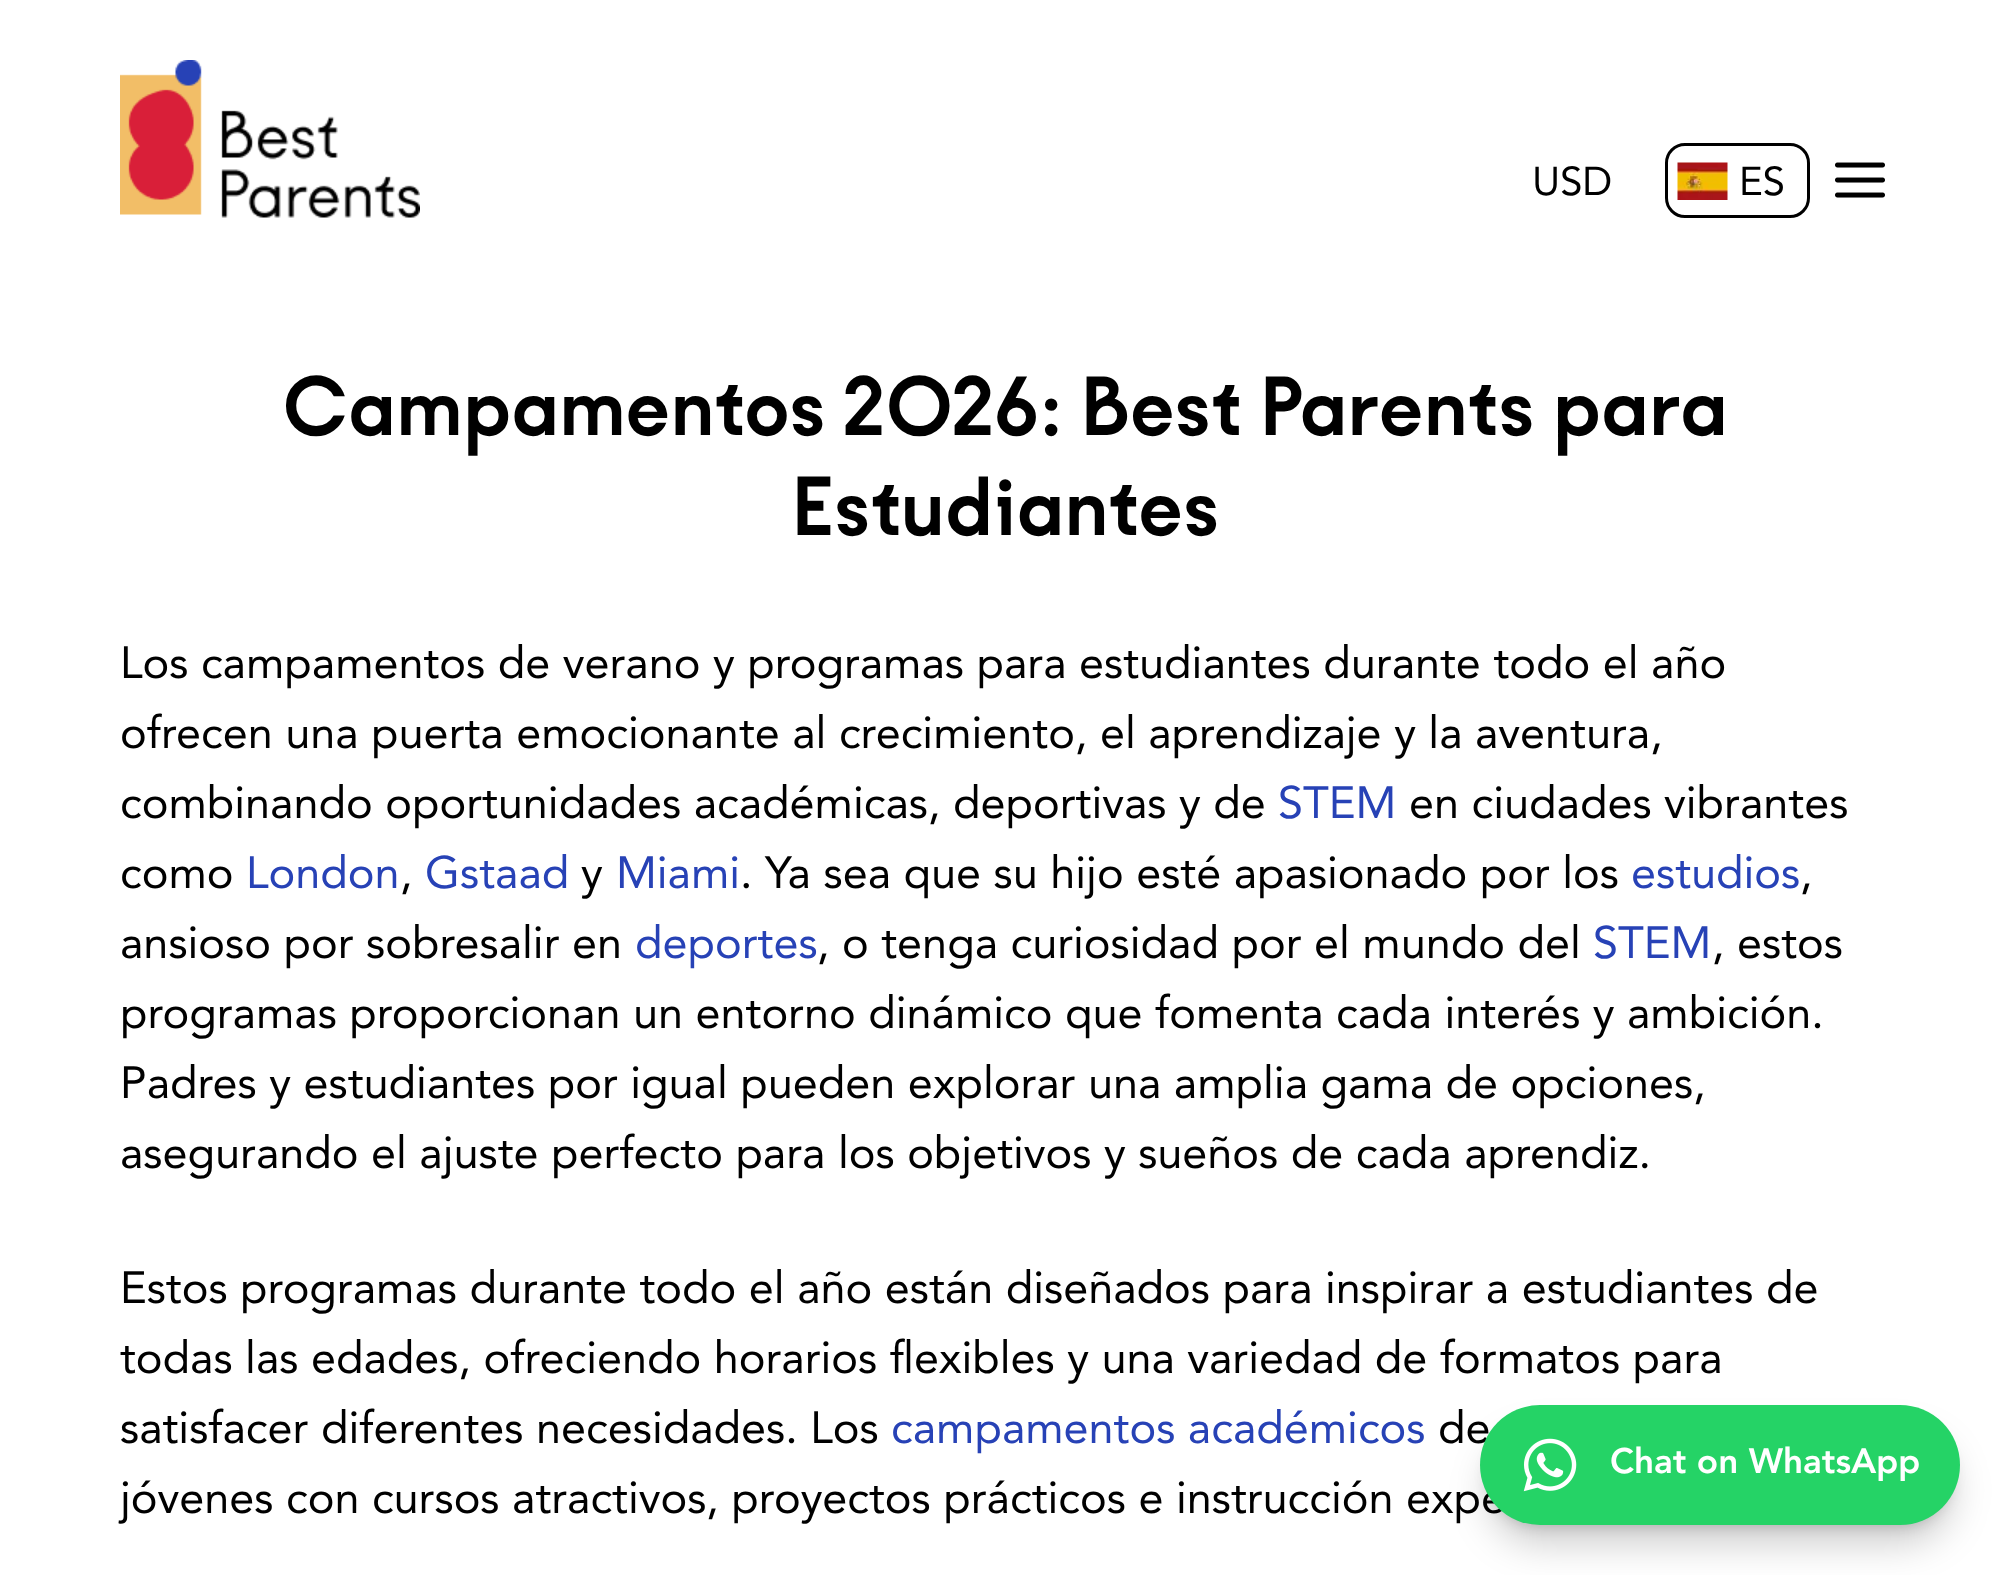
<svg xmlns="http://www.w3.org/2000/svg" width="2009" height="1575">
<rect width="100%" height="100%" fill="#fff"/>
<image x="120" y="60" width="300" height="158" href="media/1.png"/>
<text x="1532" y="195" style="font-family:Avenir;font-size:40px;fill:#000">USD</text>
<rect x="1666.5" y="144.5" width="142" height="72" rx="18.5" fill="none" stroke="#000" stroke-width="3"/>
<image x="1677" y="162" width="51" height="38" href="media/2.png"/>
<text x="1739" y="195" style="font-family:Avenir;font-size:40px;fill:#000">ES</text>
<image x="1835" y="162" width="50" height="36" href="media/3.png"/>
<text x="282" y="435" style="font-family:'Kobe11';font-size:90px;font-weight:bold;fill:#000">Campamentos 2026: Best Parents para</text>
<text x="791" y="535" style="font-family:'Kobe11';font-size:90px;font-weight:bold;fill:#000">Estudiantes</text>
<text x="120" y="678" style="font-family:Avenir;font-size:45px;fill:#000">Los campamentos de verano y programas para estudiantes durante todo el año</text>
<text x="120" y="748" style="font-family:Avenir;font-size:45px;fill:#000">ofrecen una puerta emocionante al crecimiento, el aprendizaje y la aventura,</text>
<text x="120" y="818" style="font-family:Avenir;font-size:45px;fill:#000">combinando oportunidades académicas, deportivas y de</text>
<text x="1278" y="818" style="font-family:Avenir;font-size:45px;fill:#2742b6">STEM</text>
<text x="1409" y="818" style="font-family:Avenir;font-size:45px;fill:#000">en ciudades vibrantes</text>
<text x="120" y="888" style="font-family:Avenir;font-size:45px;fill:#000">como</text>
<text x="246" y="888" style="font-family:Avenir;font-size:45px;fill:#2742b6">London</text>
<text x="400" y="888" style="font-family:Avenir;font-size:45px;fill:#000">,</text>
<text x="425" y="888" style="font-family:Avenir;font-size:45px;fill:#2742b6">Gstaad</text>
<text x="581" y="888" style="font-family:Avenir;font-size:45px;fill:#000">y</text>
<text x="616" y="888" style="font-family:Avenir;font-size:45px;fill:#2742b6">Miami</text>
<text x="740" y="888" style="font-family:Avenir;font-size:45px;fill:#000">. Ya sea que su hijo esté apasionado por los</text>
<text x="1631" y="888" style="font-family:Avenir;font-size:45px;fill:#2742b6">estudios</text>
<text x="1800" y="888" style="font-family:Avenir;font-size:45px;fill:#000">,</text>
<text x="120" y="958" style="font-family:Avenir;font-size:45px;fill:#000">ansioso por sobresalir en</text>
<text x="635" y="958" style="font-family:Avenir;font-size:45px;fill:#2742b6">deportes</text>
<text x="817" y="958" style="font-family:Avenir;font-size:45px;fill:#000">, o tenga curiosidad por el mundo del</text>
<text x="1593" y="958" style="font-family:Avenir;font-size:45px;fill:#2742b6">STEM</text>
<text x="1712" y="958" style="font-family:Avenir;font-size:45px;fill:#000">, estos</text>
<text x="120" y="1028" style="font-family:Avenir;font-size:45px;fill:#000">programas proporcionan un entorno dinámico que fomenta cada interés y ambición.</text>
<text x="120" y="1098" style="font-family:Avenir;font-size:45px;fill:#000">Padres y estudiantes por igual pueden explorar una amplia gama de opciones,</text>
<text x="120" y="1168" style="font-family:Avenir;font-size:45px;fill:#000">asegurando el ajuste perfecto para los objetivos y sueños de cada aprendiz.</text>
<text x="120" y="1303" style="font-family:Avenir;font-size:45px;fill:#000">Estos programas durante todo el año están diseñados para inspirar a estudiantes de</text>
<text x="120" y="1373" style="font-family:Avenir;font-size:45px;fill:#000">todas las edades, ofreciendo horarios flexibles y una variedad de formatos para</text>
<text x="120" y="1443" style="font-family:Avenir;font-size:45px;fill:#000">satisfacer diferentes necesidades. Los</text>
<text x="891" y="1443" style="font-family:Avenir;font-size:45px;fill:#2742b6">campamentos académicos</text>
<text x="1438" y="1443" style="font-family:Avenir;font-size:45px;fill:#000">de</text>
<text x="120" y="1513" style="font-family:Avenir;font-size:45px;fill:#000">jóvenes con cursos atractivos, proyectos prácticos e instrucción expe</text>
<rect x="1490" y="1425" width="460" height="100" rx="50" fill="#00000033" filter="blur(7.5px)"/>
<rect x="1488" y="1438" width="465" height="105" rx="52.5" fill="#00000033" filter="blur(19px)"/>
<rect x="1480" y="1405" width="480" height="120" rx="60" fill="#25d366"/>
<image x="1523" y="1438" width="54" height="54" href="media/4.png"/>
<text x="1610" y="1473" style="font-family:Avenir;font-size:35px;font-weight:900;fill:#fff">Chat on WhatsApp</text>
</svg>
